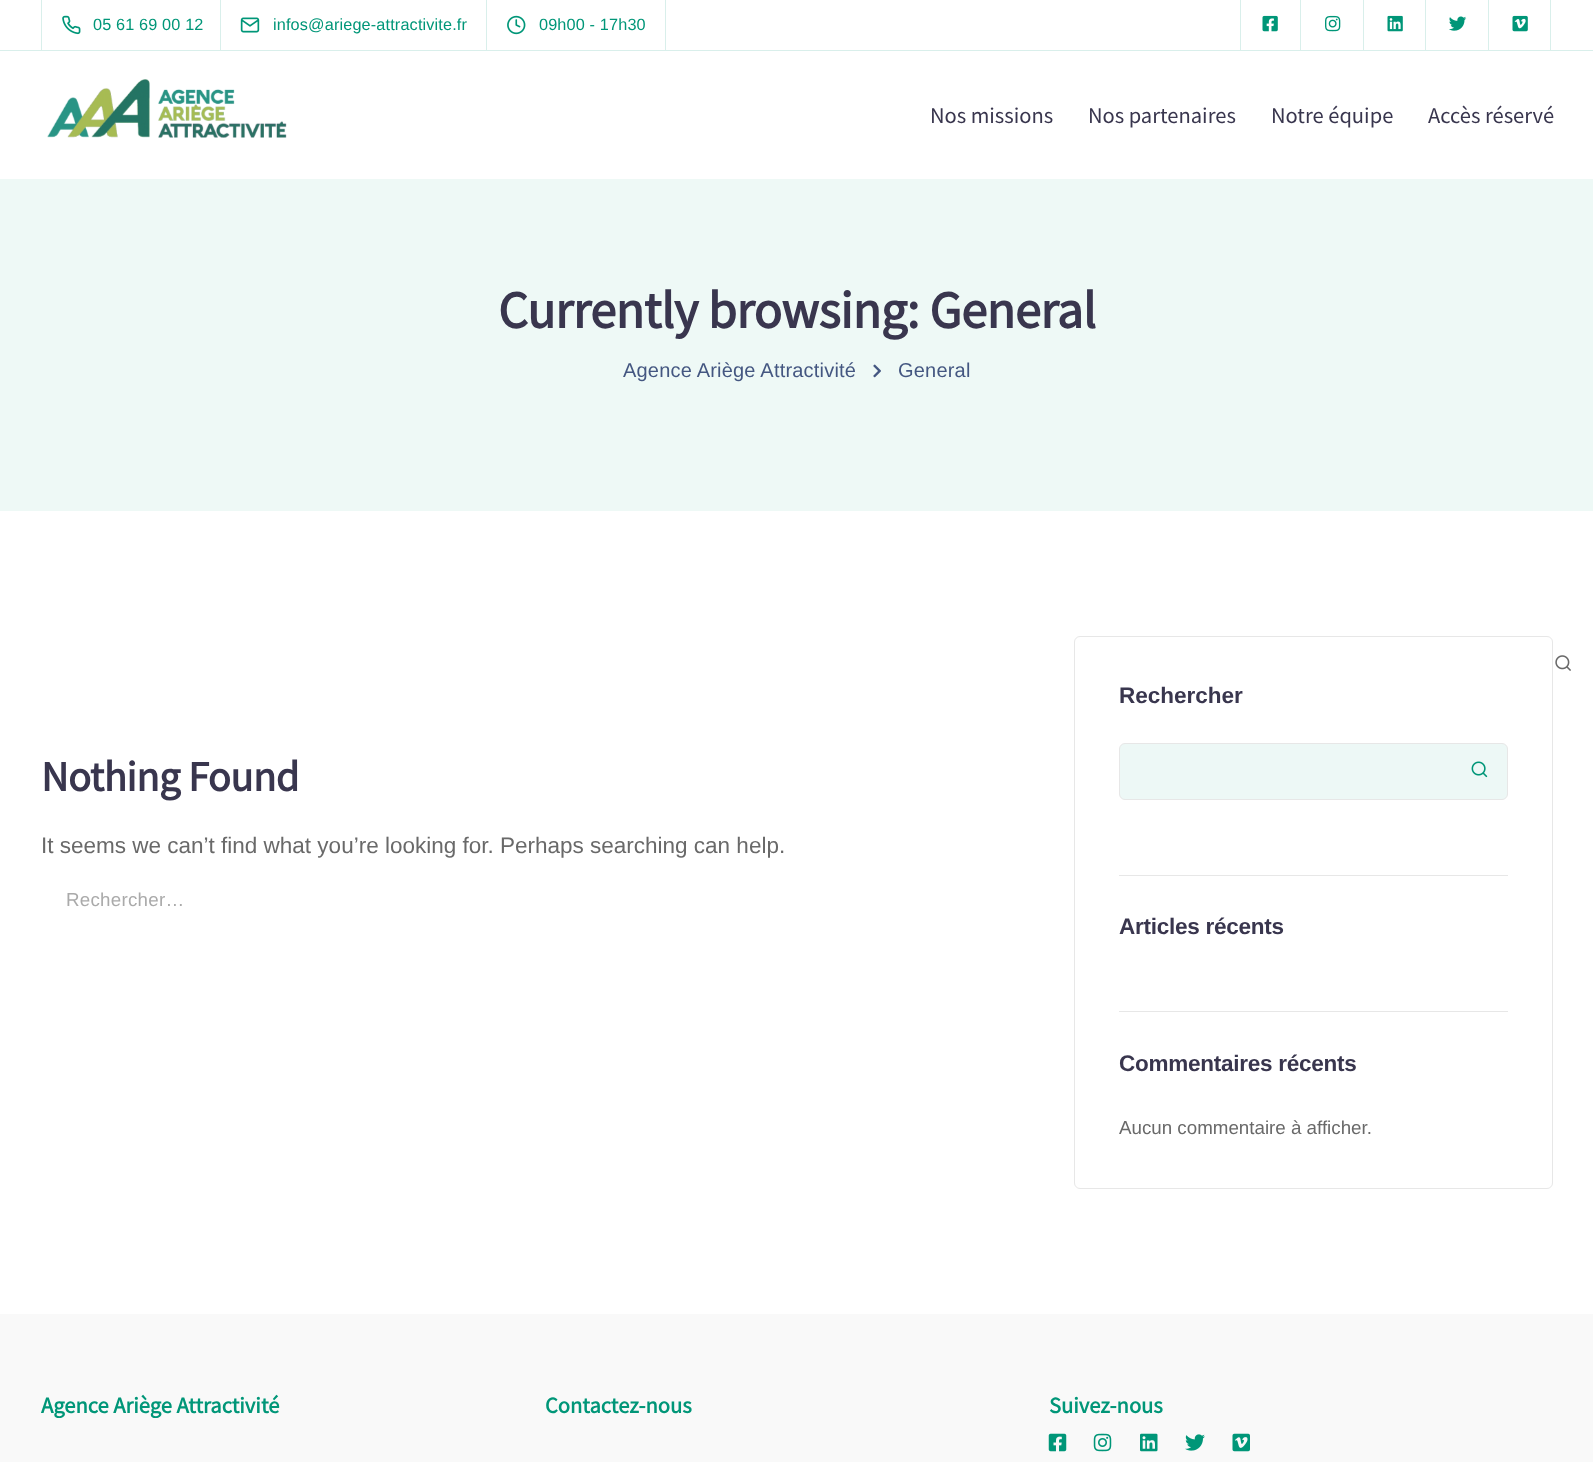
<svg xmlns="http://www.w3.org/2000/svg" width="1593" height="1462">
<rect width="100%" height="100%" fill="#fff"/>
<rect y="50" width="1593" height="1" fill="#d9efeb"/>
<rect x="665" width="1" height="50" fill="#d9efeb"/>
<rect x="41" width="1" height="50" fill="#d9efeb"/>
<rect x="220" width="1" height="50" fill="#d9efeb"/>
<image x="62" y="15" width="19" height="20" href="media/1.png"/>
<text x="93" y="30" style="font-family:Liberation Sans;font-size:16.25px;letter-spacing:0.15px;fill:#009678">05 61 69 00 12</text>
<rect x="486" width="1" height="50" fill="#d9efeb"/>
<image x="240" y="17" width="20" height="16" href="media/2.png"/>
<text x="273" y="30" style="font-family:Liberation Sans;font-size:16.25px;letter-spacing:0.15px;fill:#009678">infos@ariege-attractivite.fr</text>
<image x="507" y="15" width="19" height="20" href="media/3.png"/>
<text x="539" y="30" style="font-family:Liberation Sans;font-size:16.25px;letter-spacing:0.15px;fill:#009678">09h00 - 17h30</text>
<rect x="1240" width="1" height="50" fill="#d9efeb"/>
<rect x="1300" width="1" height="50" fill="#d9efeb"/>
<image x="1262" y="15" width="16" height="17" href="media/4.png"/>
<rect x="1363" width="1" height="50" fill="#d9efeb"/>
<image x="1325" y="15" width="16" height="17" href="media/5.png"/>
<rect x="1425" width="1" height="50" fill="#d9efeb"/>
<image x="1387" y="15" width="16" height="17" href="media/6.png"/>
<rect x="1488" width="1" height="50" fill="#d9efeb"/>
<image x="1449" y="16" width="18" height="15" href="media/7.png"/>
<rect x="1550" width="1" height="50" fill="#d9efeb"/>
<image x="1512" y="15" width="16" height="17" href="media/8.png"/>
<image x="47" y="79" width="240" height="59" href="media/9.png"/>
<text x="930" y="123" style="font-family:Source Sans Pro;font-size:22.5px;fill:#39364e">Nos missions</text>
<text x="1088" y="123" style="font-family:Source Sans Pro;font-size:22.5px;fill:#39364e">Nos partenaires</text>
<text x="1271" y="123" style="font-family:Source Sans Pro;font-size:22.5px;fill:#39364e">Notre équipe</text>
<text x="1428" y="123" style="font-family:Source Sans Pro;font-size:22.5px;fill:#39364e">Accès réservé</text>
<rect y="179" width="1593" height="332" fill="#eef9f6"/>
<text x="498" y="328" style="font-family:Source Sans Pro;font-size:52.5px;font-weight:bold;letter-spacing:-0.5px;fill:#39364e">Currently browsing: General</text>
<text x="623" y="377" style="font-family:Liberation Sans;font-size:20px;letter-spacing:0.2px;fill:#445781">Agence Ariège Attractivité</text>
<image x="873" y="364" width="8" height="14" href="media/10.png"/>
<text x="898" y="377" style="font-family:Liberation Sans;font-size:20px;letter-spacing:0.2px;fill:#445781">General</text>
<text x="41" y="791" style="font-family:Source Sans Pro;font-size:42.5px;font-weight:bold;letter-spacing:-0.5px;fill:#39364e">Nothing Found</text>
<text x="41" y="853" style="font-family:Liberation Sans;font-size:22.5px;fill:#696969">It seems we can’t find what you’re looking for. Perhaps searching can help.</text>
<image x="1555" y="655" width="16" height="16" href="media/11.png"/>
<text x="66" y="906" style="font-family:Liberation Sans;font-size:18.75px;letter-spacing:0.25px;fill:#aaa">Rechercher…</text>
<rect x="1074.5" y="636.5" width="478" height="552" rx="5.5" fill="none" stroke="#e7e7e7"/>
<rect x="1119" y="875" width="389" height="1" fill="#e7e7e7"/>
<text x="1119" y="703" style="font-family:Liberation Sans;font-size:22.5px;font-weight:bold;fill:#39364e">Rechercher</text>
<rect x="1119.5" y="743.5" width="388" height="56" rx="5.5" fill="#edf8f6" stroke="#e7e7e7"/>
<image x="1471" y="761" width="17" height="17" href="media/12.png"/>
<rect x="1119" y="1011" width="389" height="1" fill="#e7e7e7"/>
<text x="1119" y="934" style="font-family:Liberation Sans;font-size:22.5px;font-weight:bold;letter-spacing:-0.25px;fill:#39364e">Articles récents</text>
<text x="1119" y="1071" style="font-family:Liberation Sans;font-size:22.5px;font-weight:bold;letter-spacing:-0.25px;fill:#39364e">Commentaires récents</text>
<text x="1119" y="1134" style="font-family:Liberation Sans;font-size:18.75px;fill:#696969">Aucun commentaire à afficher.</text>
<rect y="1314" width="1593" height="148" fill="#f9f9f9"/>
<text x="41" y="1413" style="font-family:Source Sans Pro;font-size:22.5px;font-weight:bold;fill:#009678">Agence Ariège Attractivité</text>
<text x="545" y="1413" style="font-family:Source Sans Pro;font-size:22.5px;font-weight:bold;fill:#009678">Contactez-nous</text>
<text x="1049" y="1413" style="font-family:Source Sans Pro;font-size:22.5px;font-weight:bold;fill:#009678">Suivez-nous</text>
<image x="1048" y="1433" width="19" height="19" href="media/13.png"/>
<image x="1093" y="1433" width="19" height="19" href="media/14.png"/>
<image x="1140" y="1433" width="18" height="19" href="media/15.png"/>
<image x="1185" y="1434" width="20" height="17" href="media/16.png"/>
<image x="1232" y="1433" width="18" height="19" href="media/17.png"/>
</svg>
